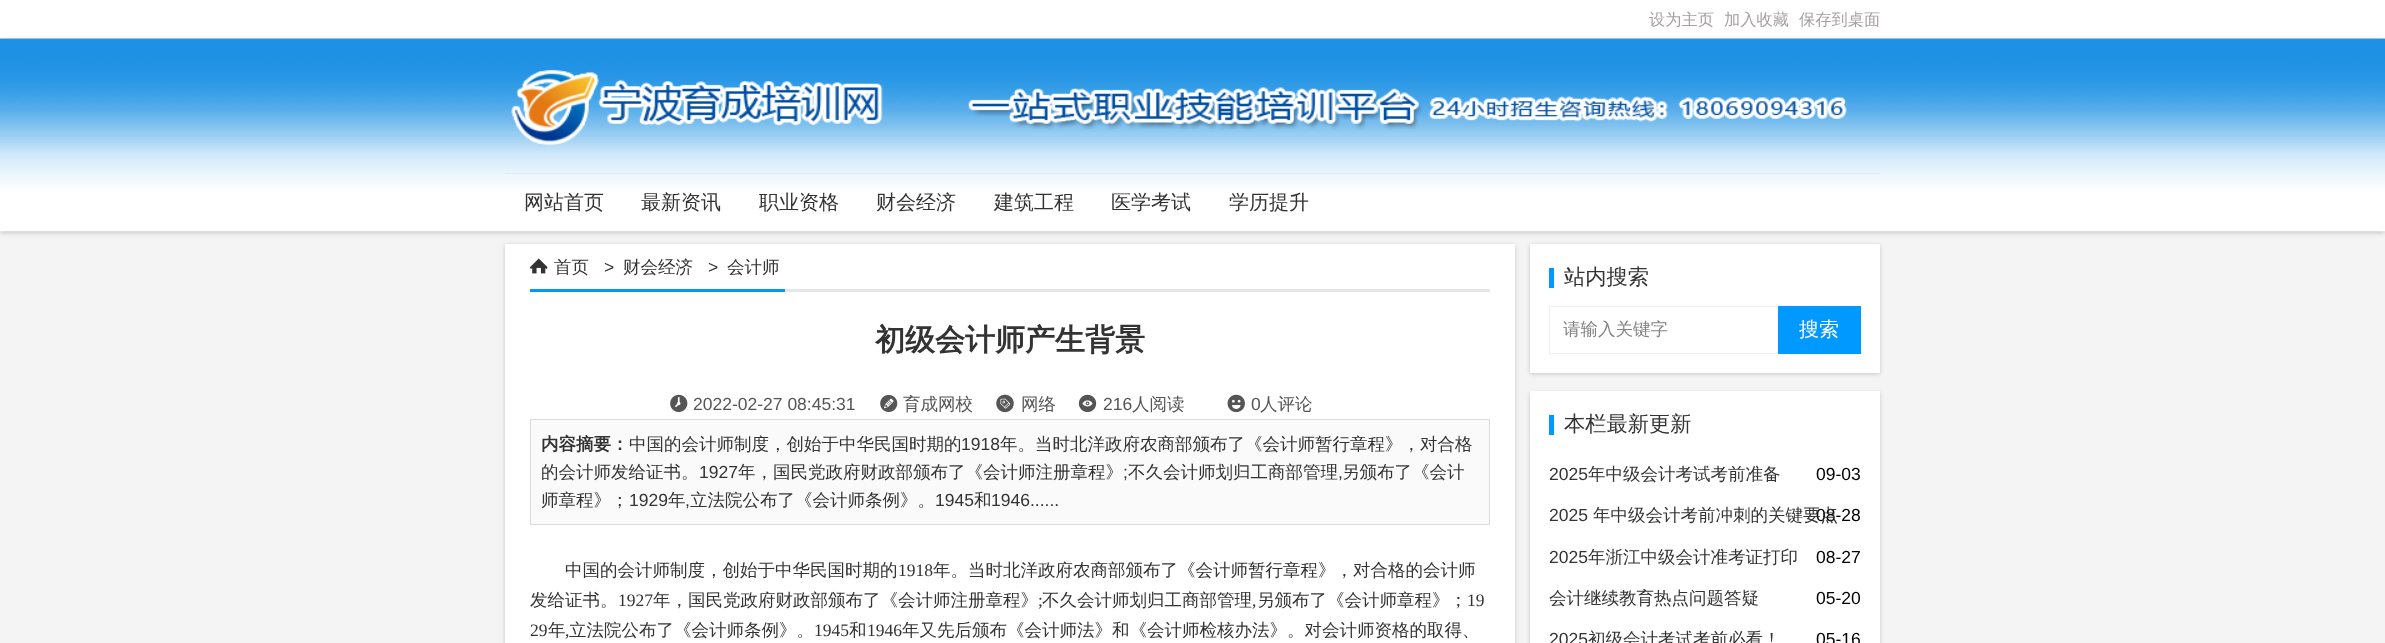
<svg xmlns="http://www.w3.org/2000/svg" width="2385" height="643">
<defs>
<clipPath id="clip1"><rect x="1549" y="306" width="312" height="48"/></clipPath>
</defs>
<rect width="100%" height="100%" fill="#f4f4f4"/>
<rect width="2385" height="38" fill="#fff"/>
<rect y="38" width="2385" height="1" fill="#dedede"/>
<text x="1649" y="25" style="font-family:WenQuanYi Zen Hei;font-size:16.25px;font-weight:500;fill:#a59ea3">设为主页</text>
<text x="1724" y="25" style="font-family:WenQuanYi Zen Hei;font-size:16.25px;font-weight:500;fill:#a59ea3">加入收藏</text>
<text x="1799" y="25" style="font-family:WenQuanYi Zen Hei;font-size:16.25px;font-weight:500;fill:#a59ea3">保存到桌面</text>
<rect y="40" width="2385" height="193" fill="#1a1a1a33" filter="blur(2px)"/>
<image x="0" y="38" width="2385" height="194" href="media/1.png"/>
<image x="511" y="69" width="372" height="77" href="media/2.png"/>
<image x="968" y="87" width="879" height="43" href="media/3.png"/>
<rect x="505" y="173" width="1375" height="1" fill="#eaeaea"/>
<text x="524" y="209" style="font-family:WenQuanYi Zen Hei;font-size:20px;font-weight:500;fill:#333">网站首页</text>
<text x="641" y="209" style="font-family:WenQuanYi Zen Hei;font-size:20px;font-weight:500;fill:#333">最新资讯</text>
<text x="759" y="209" style="font-family:WenQuanYi Zen Hei;font-size:20px;font-weight:500;fill:#333">职业资格</text>
<text x="876" y="209" style="font-family:WenQuanYi Zen Hei;font-size:20px;font-weight:500;fill:#333">财会经济</text>
<text x="994" y="209" style="font-family:WenQuanYi Zen Hei;font-size:20px;font-weight:500;fill:#333">建筑工程</text>
<text x="1111" y="209" style="font-family:WenQuanYi Zen Hei;font-size:20px;font-weight:500;fill:#333">医学考试</text>
<text x="1229" y="209" style="font-family:WenQuanYi Zen Hei;font-size:20px;font-weight:500;fill:#333">学历提升</text>
<rect x="505" y="245" width="1010" height="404" fill="#1a1a1a33" filter="blur(2px)"/>
<rect x="505" y="244" width="1010" height="399" fill="#fff"/>
<rect x="785" y="289" width="705" height="3" fill="#e6e6e6"/>
<rect x="530" y="289" width="255" height="3" fill="#09f"/>
<image x="530" y="258" width="18" height="16" href="media/4.png"/>
<text x="554" y="273" style="font-family:WenQuanYi Zen Hei;font-size:17.5px;font-weight:500;fill:#333">首页</text>
<text x="604" y="273" style="font-family:Liberation Sans;font-size:17.5px;fill:#333">&gt;</text>
<text x="623" y="273" style="font-family:WenQuanYi Zen Hei;font-size:17.5px;font-weight:500;fill:#333">财会经济</text>
<text x="708" y="273" style="font-family:Liberation Sans;font-size:17.5px;fill:#333">&gt;</text>
<text x="727" y="273" style="font-family:WenQuanYi Zen Hei;font-size:17.5px;font-weight:500;fill:#333">会计师</text>
<text x="875" y="350" style="font-family:WenQuanYi Zen Hei;font-size:30px;font-weight:bold;fill:#333">初级会计师产生背景</text>
<image x="670" y="394" width="18" height="19" href="media/5.png"/>
<text x="693" y="410" style="font-family:Liberation Sans;font-size:17.5px;fill:#555">2022-02-27 08:45:31</text>
<image x="880" y="394" width="18" height="18" href="media/6.png"/>
<text x="903" y="410" style="font-family:WenQuanYi Zen Hei;font-size:17.5px;font-weight:500;fill:#555">育成网校</text>
<image x="996" y="394" width="18" height="19" href="media/7.png"/>
<text x="1021" y="410" style="font-family:WenQuanYi Zen Hei;font-size:17.5px;font-weight:500;fill:#555">网络</text>
<image x="1078" y="394" width="19" height="19" href="media/8.png"/>
<text x="1103" y="410" style="font-family:Liberation Sans;font-size:17.5px;fill:#555">216</text>
<text x="1132" y="410" style="font-family:WenQuanYi Zen Hei;font-size:17.5px;font-weight:500;fill:#555">人阅读</text>
<image x="1227" y="394" width="18" height="19" href="media/9.png"/>
<text x="1251" y="410" style="font-family:Liberation Sans;font-size:17.5px;fill:#555">0</text>
<text x="1260" y="410" style="font-family:WenQuanYi Zen Hei;font-size:17.5px;font-weight:500;fill:#555">人评论</text>
<rect x="530.5" y="419.5" width="959" height="105" fill="#fafafa" stroke="#dcdcdc"/>
<text x="541" y="450" style="font-family:WenQuanYi Zen Hei;font-size:17.5px;font-weight:bold;fill:#333">内容摘要：</text>
<text x="629" y="450" style="font-family:WenQuanYi Zen Hei;font-size:17.5px;font-weight:500;fill:#333">中国的会计师制度，创始于中华民国时期的</text>
<text x="961" y="450" style="font-family:Liberation Sans;font-size:17.5px;fill:#333">1918</text>
<text x="1000" y="450" style="font-family:WenQuanYi Zen Hei;font-size:17.5px;font-weight:500;fill:#333">年。当时北洋政府农商部颁布了《会计师暂行章程》，对合格</text>
<text x="541" y="478" style="font-family:WenQuanYi Zen Hei;font-size:17.5px;font-weight:500;fill:#333">的会计师发给证书。</text>
<text x="699" y="478" style="font-family:Liberation Sans;font-size:17.5px;fill:#333">1927</text>
<text x="738" y="478" style="font-family:WenQuanYi Zen Hei;font-size:17.5px;font-weight:500;fill:#333">年，国民党政府财政部颁布了《会计师注册章程》</text>
<text x="1123" y="478" style="font-family:Liberation Sans;font-size:17.5px;fill:#333">;</text>
<text x="1128" y="478" style="font-family:WenQuanYi Zen Hei;font-size:17.5px;font-weight:500;fill:#333">不久会计师划归工商部管理</text>
<text x="1338" y="478" style="font-family:Liberation Sans;font-size:17.5px;fill:#333">,</text>
<text x="1342" y="478" style="font-family:WenQuanYi Zen Hei;font-size:17.5px;font-weight:500;fill:#333">另颁布了《会计</text>
<text x="541" y="506" style="font-family:WenQuanYi Zen Hei;font-size:17.5px;font-weight:500;fill:#333">师章程》；</text>
<text x="629" y="506" style="font-family:Liberation Sans;font-size:17.5px;fill:#333">1929</text>
<text x="668" y="506" style="font-family:WenQuanYi Zen Hei;font-size:17.5px;font-weight:500;fill:#333">年</text>
<text x="685" y="506" style="font-family:Liberation Sans;font-size:17.5px;fill:#333">,</text>
<text x="690" y="506" style="font-family:WenQuanYi Zen Hei;font-size:17.5px;font-weight:500;fill:#333">立法院公布了《会计师条例》。</text>
<text x="935" y="506" style="font-family:Liberation Sans;font-size:17.5px;fill:#333">1945</text>
<text x="974" y="506" style="font-family:WenQuanYi Zen Hei;font-size:17.5px;font-weight:500;fill:#333">和</text>
<text x="991" y="506" style="font-family:Liberation Sans;font-size:17.5px;fill:#333">1946......</text>
<text x="565" y="576" style="font-family:WenQuanYi Zen Hei;font-size:17.5px;font-weight:500;fill:#333">中国的会计师制度，创始于中华民国时期的</text>
<text x="898" y="576" style="font-family:Liberation Serif;font-size:17.5px;fill:#333">1918</text>
<text x="933" y="576" style="font-family:WenQuanYi Zen Hei;font-size:17.5px;font-weight:500;fill:#333">年。当时北洋政府农商部颁布了《会计师暂行章程》，对合格的会计师</text>
<text x="530" y="606" style="font-family:WenQuanYi Zen Hei;font-size:17.5px;font-weight:500;fill:#333">发给证书。</text>
<text x="618" y="606" style="font-family:Liberation Serif;font-size:17.5px;fill:#333">1927</text>
<text x="653" y="606" style="font-family:WenQuanYi Zen Hei;font-size:17.5px;font-weight:500;fill:#333">年，国民党政府财政部颁布了《会计师注册章程》</text>
<text x="1038" y="606" style="font-family:Liberation Serif;font-size:17.5px;fill:#333">;</text>
<text x="1042" y="606" style="font-family:WenQuanYi Zen Hei;font-size:17.5px;font-weight:500;fill:#333">不久会计师划归工商部管理</text>
<text x="1252" y="606" style="font-family:Liberation Serif;font-size:17.5px;fill:#333">,</text>
<text x="1257" y="606" style="font-family:WenQuanYi Zen Hei;font-size:17.5px;font-weight:500;fill:#333">另颁布了《会计师章程》；</text>
<text x="1467" y="606" style="font-family:Liberation Serif;font-size:17.5px;fill:#333">19</text>
<text x="530" y="636" style="font-family:Liberation Serif;font-size:17.5px;fill:#333">29</text>
<text x="548" y="636" style="font-family:WenQuanYi Zen Hei;font-size:17.5px;font-weight:500;fill:#333">年</text>
<text x="565" y="636" style="font-family:Liberation Serif;font-size:17.5px;fill:#333">,</text>
<text x="569" y="636" style="font-family:WenQuanYi Zen Hei;font-size:17.5px;font-weight:500;fill:#333">立法院公布了《会计师条例》。</text>
<text x="814" y="636" style="font-family:Liberation Serif;font-size:17.5px;fill:#333">1945</text>
<text x="849" y="636" style="font-family:WenQuanYi Zen Hei;font-size:17.5px;font-weight:500;fill:#333">和</text>
<text x="867" y="636" style="font-family:Liberation Serif;font-size:17.5px;fill:#333">1946</text>
<text x="902" y="636" style="font-family:WenQuanYi Zen Hei;font-size:17.5px;font-weight:500;fill:#333">年又先后颁布《会计师法》和《会计师检核办法》。对会计师资格的取得、</text>
<rect x="1530" y="245" width="350" height="129" fill="#1a1a1a33" filter="blur(2px)"/>
<rect x="1530" y="244" width="350" height="129" fill="#fff"/>
<rect x="1549" y="268" width="5" height="20" fill="#09f"/>
<text x="1564" y="284" style="font-family:WenQuanYi Zen Hei;font-size:21.25px;font-weight:500;fill:#333">站内搜索</text>
<g clip-path="url(#clip1)">
<rect x="1549.5" y="306.5" width="326" height="47" fill="none" stroke="#efefef"/>
</g>
<text x="1563" y="335" style="font-family:WenQuanYi Zen Hei;font-size:17.5px;font-weight:500;fill:#838383">请输入关键字</text>
<rect x="1778" y="306" width="83" height="48" fill="#09f"/>
<text x="1799" y="336" style="font-family:WenQuanYi Zen Hei;font-size:20px;font-weight:500;fill:#fff">搜索</text>
<rect x="1530" y="393" width="350" height="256" fill="#1a1a1a33" filter="blur(2px)"/>
<rect x="1530" y="391" width="350" height="252" fill="#fff"/>
<rect x="1549" y="415" width="5" height="20" fill="#09f"/>
<text x="1564" y="431" style="font-family:WenQuanYi Zen Hei;font-size:21.25px;font-weight:500;fill:#333">本栏最新更新</text>
<text x="1549" y="480" style="font-family:Liberation Sans;font-size:17.5px;fill:#333">2025</text>
<text x="1588" y="480" style="font-family:WenQuanYi Zen Hei;font-size:17.5px;font-weight:500;fill:#333">年中级会计考试考前准备</text>
<text x="1816" y="480" style="font-family:Liberation Sans;font-size:17.5px;fill:#000">09-03</text>
<text x="1549" y="521" style="font-family:Liberation Sans;font-size:17.5px;fill:#333">2025</text>
<text x="1816" y="521" style="font-family:Liberation Sans;font-size:17.5px;fill:#000">08-28</text>
<text x="1593" y="521" style="font-family:WenQuanYi Zen Hei;font-size:17.5px;font-weight:500;fill:#333">年中级会计考前冲刺的关键要点</text>
<text x="1549" y="563" style="font-family:Liberation Sans;font-size:17.5px;fill:#333">2025</text>
<text x="1588" y="563" style="font-family:WenQuanYi Zen Hei;font-size:17.5px;font-weight:500;fill:#333">年浙江中级会计准考证打印</text>
<text x="1816" y="563" style="font-family:Liberation Sans;font-size:17.5px;fill:#000">08-27</text>
<text x="1549" y="604" style="font-family:WenQuanYi Zen Hei;font-size:17.5px;font-weight:500;fill:#333">会计继续教育热点问题答疑</text>
<text x="1816" y="604" style="font-family:Liberation Sans;font-size:17.5px;fill:#000">05-20</text>
<text x="1549" y="645" style="font-family:Liberation Sans;font-size:17.5px;fill:#333">2025</text>
<text x="1588" y="645" style="font-family:WenQuanYi Zen Hei;font-size:17.5px;font-weight:500;fill:#333">初级会计考试考前必看！</text>
<text x="1816" y="645" style="font-family:Liberation Sans;font-size:17.5px;fill:#000">05-16</text>
</svg>
